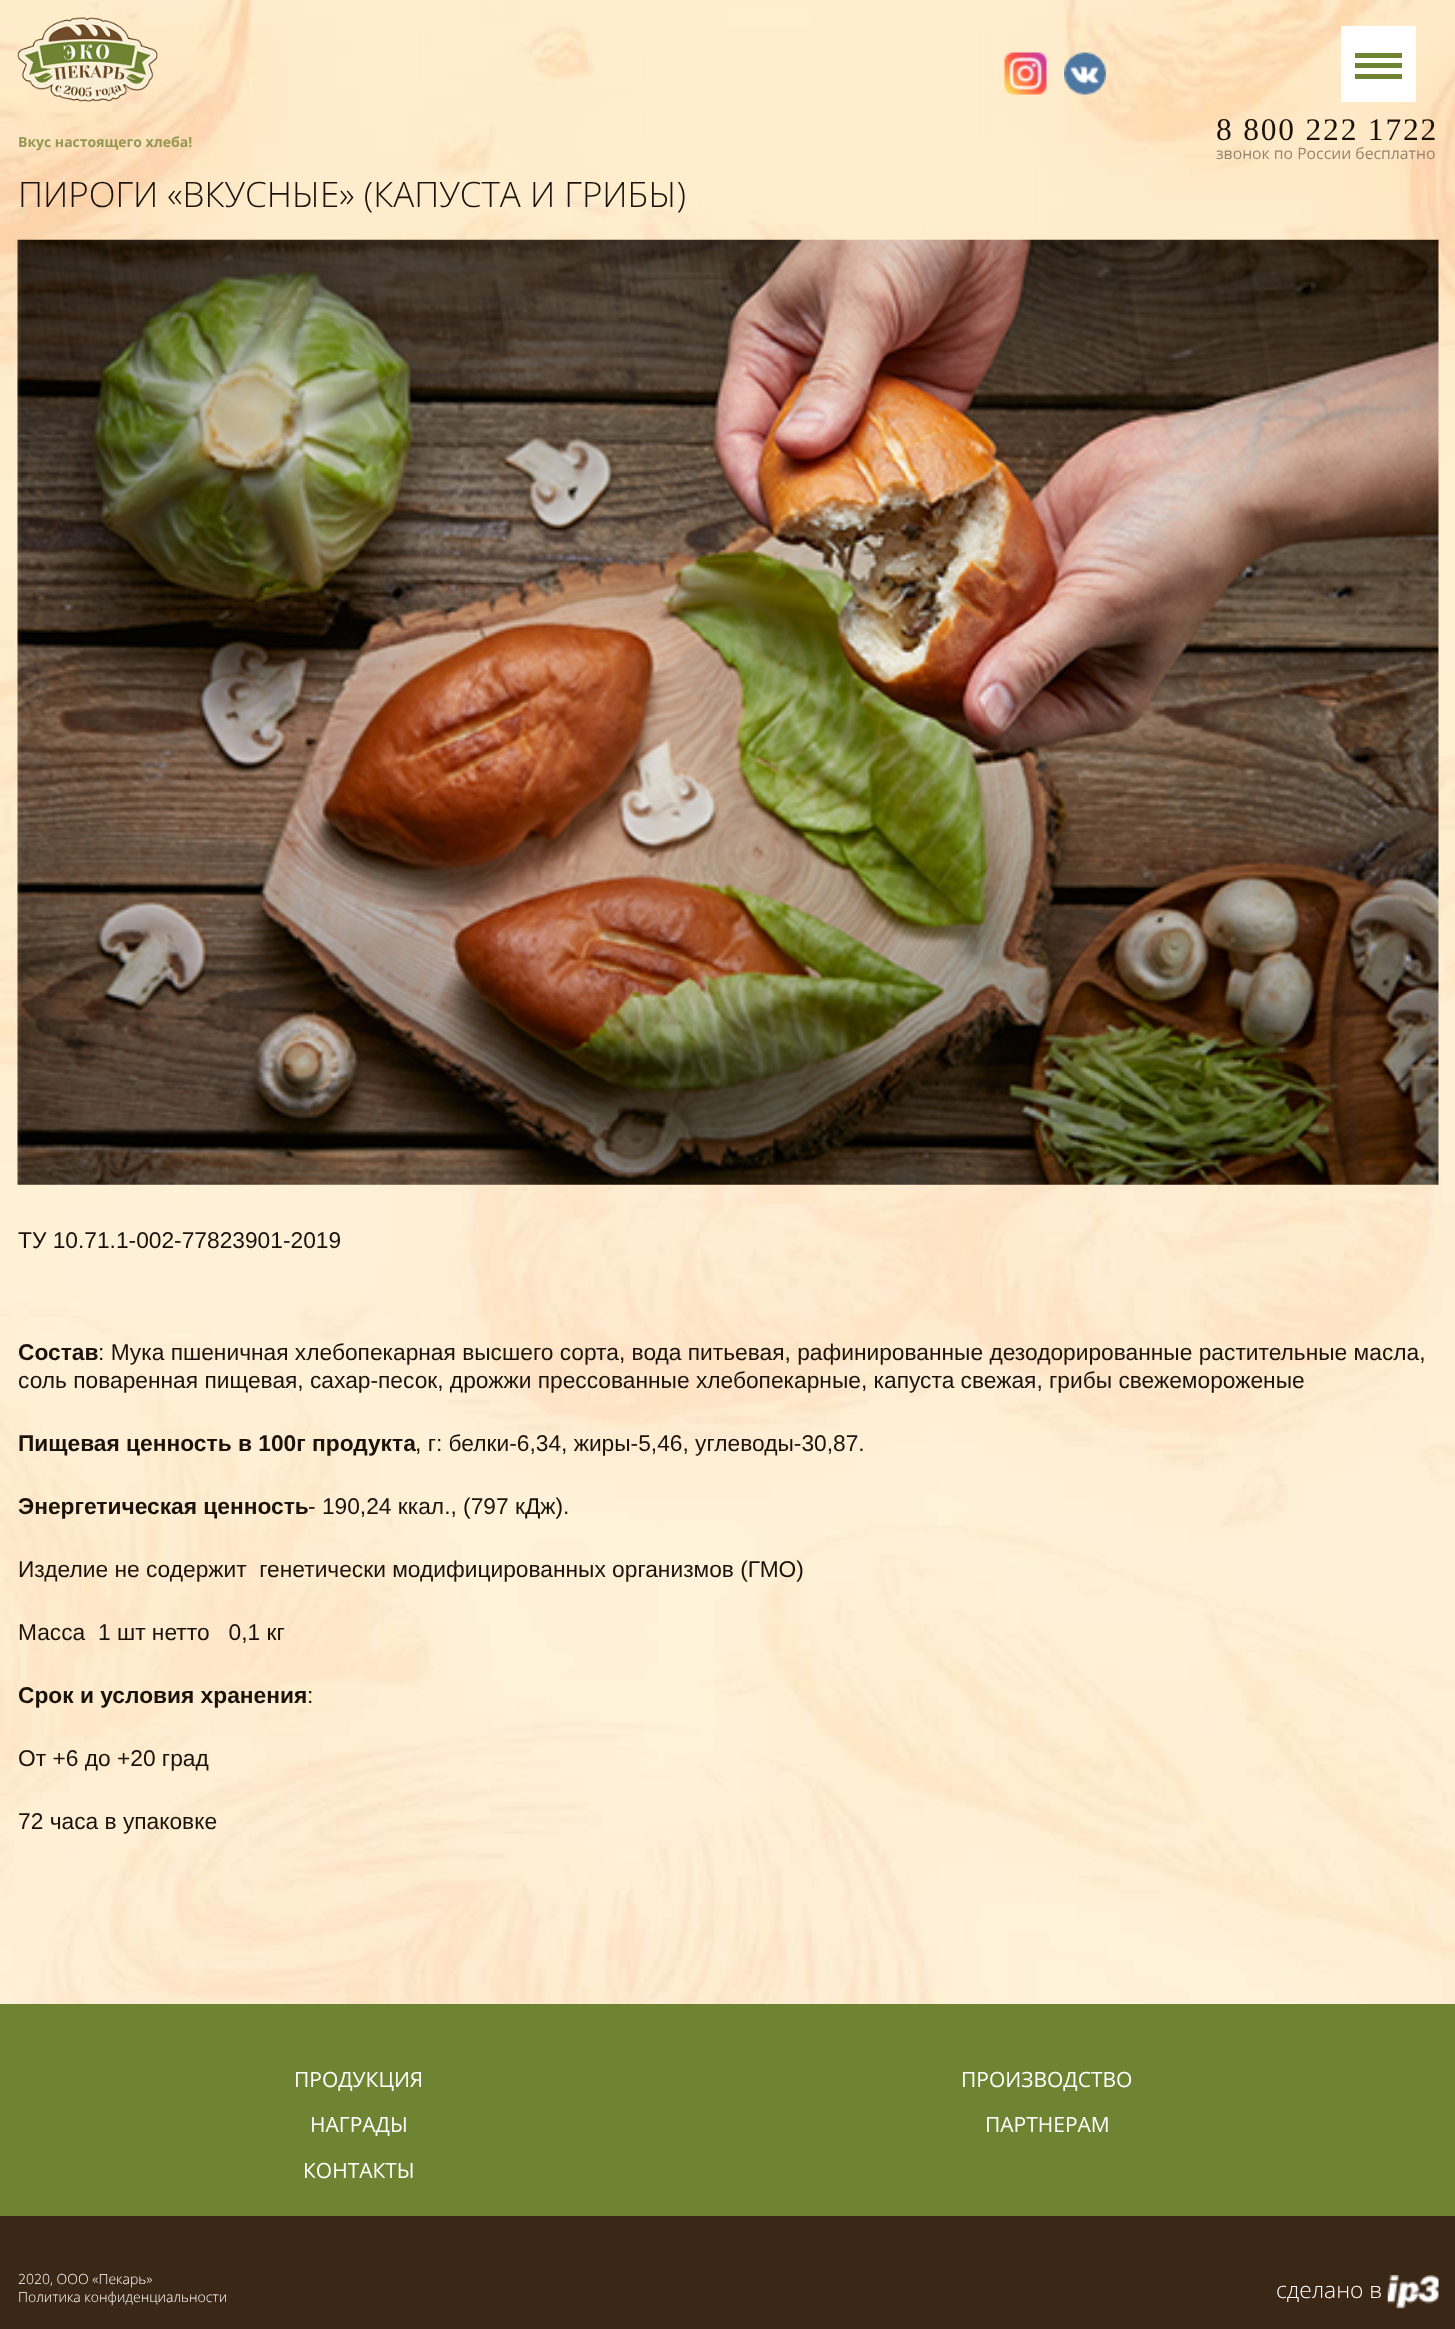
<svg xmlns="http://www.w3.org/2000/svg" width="1455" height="2329">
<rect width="100%" height="100%" fill="#fff"/>
<image x="0" y="0" width="1455" height="2004" href="media/1.png"/>
<image x="17" y="17" width="141" height="85" href="media/2.png"/>
<image x="1004" y="52" width="43" height="43" href="media/3.png"/>
<image x="1064" y="52" width="42" height="43" href="media/4.png"/>
<rect x="1341" y="26" width="75" height="76" fill="#fff"/>
<rect x="1355" y="63" width="47" height="5" fill="#6f8433"/>
<rect x="1355" y="53" width="47" height="5" fill="#6f8433"/>
<rect x="1355" y="74" width="47" height="5" fill="#6f8433"/>
<text x="18" y="147" style="font-family:Open Sans;font-size:14px;font-weight:bold;fill:#939954">Вкус настоящего хлеба!</text>
<text x="1216" y="140" style="font-family:Liberation Serif;font-size:31.5px;letter-spacing:1.8px;fill:#1b130b">8 800 222 1722</text>
<text x="1216" y="159" style="font-family:Open Sans;font-size:15.75px;fill:#95846e">звонок по России бесплатно</text>
<text x="18" y="207" style="font-family:Open Sans;font-size:35px;font-weight:300;fill:#1b130b">ПИРОГИ «ВКУСНЫЕ» (КАПУСТА И ГРИБЫ)</text>
<image x="17" y="239" width="1422" height="946" href="media/5.png"/>
<text x="18" y="1248" style="font-family:Liberation Sans;font-size:22.75px;fill:#1b130b">ТУ 10.71.1-002-77823901-2019</text>
<text x="18" y="1360" style="font-family:Liberation Sans;font-size:22.75px;font-weight:bold;fill:#1b130b">Состав</text>
<text x="98" y="1360" style="font-family:Liberation Sans;font-size:22.75px;fill:#1b130b">: Мука пшеничная хлебопекарная высшего сорта, вода питьевая, рафинированные дезодорированные растительные масла,</text>
<text x="18" y="1388" style="font-family:Liberation Sans;font-size:22.75px;fill:#1b130b">соль поваренная пищевая, сахар-песок, дрожжи прессованные хлебопекарные, капуста свежая, грибы свежемороженые</text>
<text x="18" y="1451" style="font-family:Liberation Sans;font-size:22.75px;font-weight:bold;fill:#1b130b">Пищевая ценность в 100г продукта</text>
<text x="415" y="1451" style="font-family:Liberation Sans;font-size:22.75px;fill:#1b130b">, г: белки-6,34, жиры-5,46, углеводы-30,87.</text>
<text x="18" y="1514" style="font-family:Liberation Sans;font-size:22.75px;font-weight:bold;fill:#1b130b">Энергетическая ценность</text>
<text x="308" y="1514" style="font-family:Liberation Sans;font-size:22.75px;fill:#1b130b">- 190,24 ккал., (797 кДж).</text>
<text x="18" y="1577" style="font-family:Liberation Sans;font-size:22.75px;fill:#1b130b" xml:space="preserve">Изделие не содержит  генетически модифицированных организмов (ГМО)</text>
<text x="18" y="1640" style="font-family:Liberation Sans;font-size:22.75px;fill:#1b130b" xml:space="preserve">Масса  1 шт нетто   0,1 кг</text>
<text x="18" y="1703" style="font-family:Liberation Sans;font-size:22.75px;font-weight:bold;fill:#1b130b">Срок и условия хранения</text>
<text x="307" y="1703" style="font-family:Liberation Sans;font-size:22.75px;fill:#1b130b">:</text>
<text x="18" y="1766" style="font-family:Liberation Sans;font-size:22.75px;fill:#1b130b">От +6 до +20 град</text>
<text x="18" y="1829" style="font-family:Liberation Sans;font-size:22.75px;fill:#1b130b">72 часа в упаковке</text>
<rect y="2216" width="1455" height="113" fill="#3b2715"/>
<rect y="2004" width="1455" height="212" fill="#6f8433"/>
<text x="294" y="2087" style="font-family:Open Sans;font-size:21px;fill:#fff">ПРОДУКЦИЯ</text>
<text x="961" y="2087" style="font-family:Open Sans;font-size:21px;fill:#fff">ПРОИЗВОДСТВО</text>
<text x="310" y="2132" style="font-family:Open Sans;font-size:21px;fill:#fff">НАГРАДЫ</text>
<text x="985" y="2132" style="font-family:Open Sans;font-size:21px;fill:#fff">ПАРТНЕРАМ</text>
<text x="303" y="2178" style="font-family:Open Sans;font-size:21px;fill:#fff">КОНТАКТЫ</text>
<text x="18" y="2284" style="font-family:Open Sans;font-size:14px;font-weight:300;fill:#fff">2020, ООО «Пекарь»</text>
<text x="18" y="2302" style="font-family:Open Sans;font-size:14px;font-weight:300;fill:#fff">Политика конфиденциальности</text>
<text x="1276" y="2298" style="font-family:Open Sans;font-size:22.75px;font-weight:300;fill:#fff">сделано в</text>
<image x="1387" y="2275" width="52" height="34" href="media/6.png"/>
</svg>
